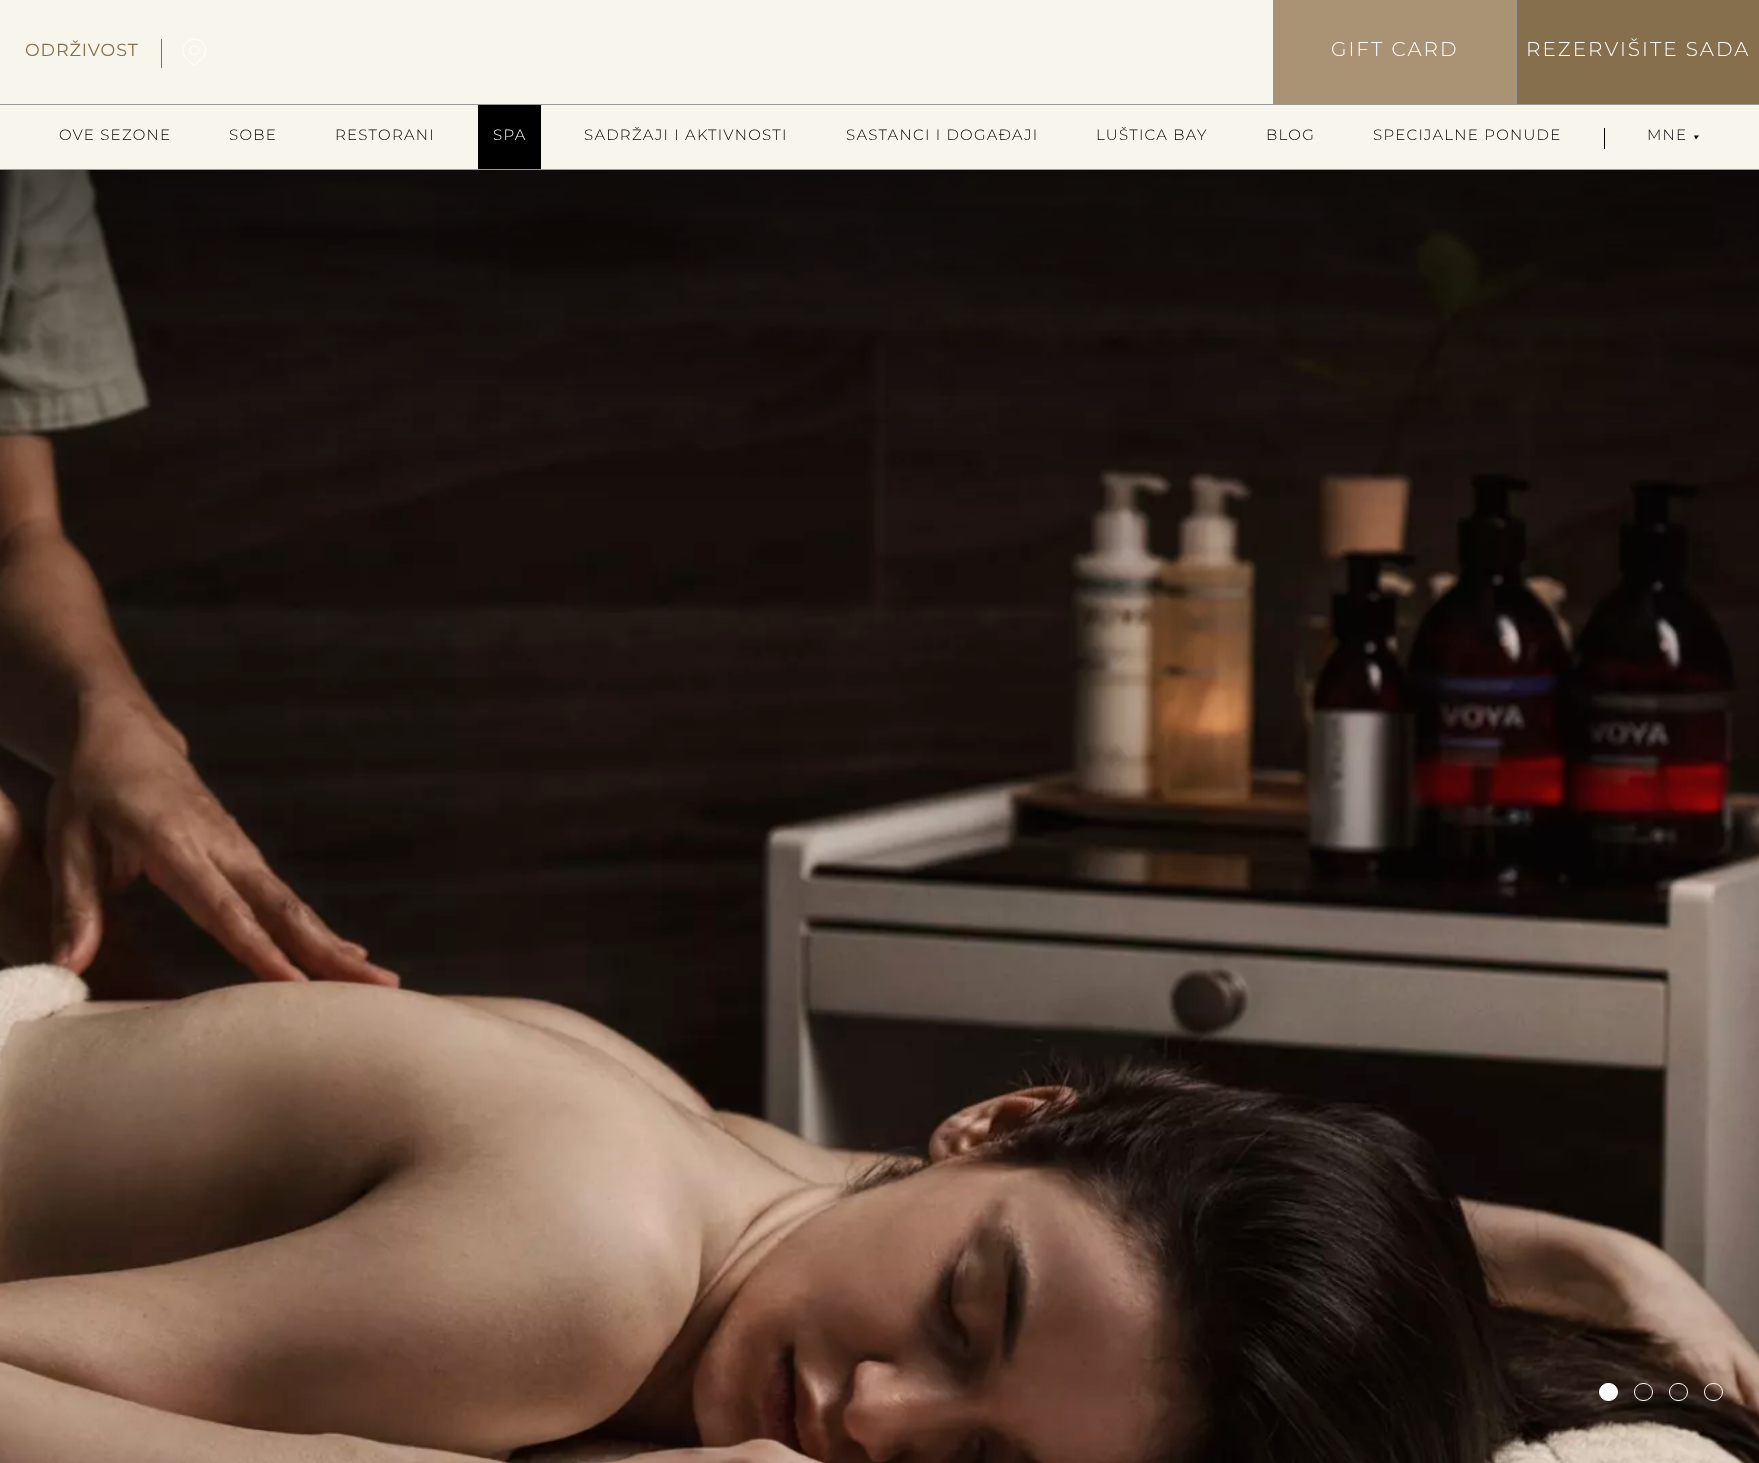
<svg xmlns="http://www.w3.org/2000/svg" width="1759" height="1463">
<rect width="100%" height="100%" fill="#fff"/>
<rect width="1759" height="169" fill="#f8f5ec"/>
<text x="25" y="56" style="font-family:Montserrat;font-size:17.5px;letter-spacing:0.9px;fill:#856f4c">ODRŽIVOST</text>
<rect x="161" y="39" width="1" height="29" fill="#856f4c"/>
<image x="182" y="38" width="24" height="28" href="media/1.png"/>
<rect x="1273" width="243" height="104" fill="#aa9274"/>
<text x="1331" y="56" style="font-family:Montserrat;font-size:20px;font-weight:300;letter-spacing:2px;fill:#fff">GIFT CARD</text>
<rect x="1517" width="242" height="104" fill="#856f4c"/>
<rect x="1516" width="1" height="104" fill="#999"/>
<text x="1526" y="56" style="font-family:Montserrat;font-size:20px;font-weight:300;letter-spacing:2px;fill:#fff">REZERVIŠITE SADA</text>
<rect y="104" width="1759" height="1" fill="#999"/>
<rect y="169" width="1759" height="1" fill="#999"/>
<text x="59" y="140" style="font-family:Montserrat;font-size:15px;font-weight:300;letter-spacing:1.25px;fill:#000">OVE SEZONE</text>
<text x="229" y="140" style="font-family:Montserrat;font-size:15px;font-weight:300;letter-spacing:1.25px;fill:#000">SOBE</text>
<text x="335" y="140" style="font-family:Montserrat;font-size:15px;font-weight:300;letter-spacing:1.25px;fill:#000">RESTORANI</text>
<rect x="478" y="105" width="63" height="64" fill="#000"/>
<text x="493" y="140" style="font-family:Montserrat;font-size:15px;font-weight:300;letter-spacing:1.25px;fill:#fff">SPA</text>
<text x="584" y="140" style="font-family:Montserrat;font-size:15px;font-weight:300;letter-spacing:1.25px;fill:#000">SADRŽAJI I AKTIVNOSTI</text>
<text x="846" y="140" style="font-family:Montserrat;font-size:15px;font-weight:300;letter-spacing:1.25px;fill:#000">SASTANCI I DOGAĐAJI</text>
<text x="1096" y="140" style="font-family:Montserrat;font-size:15px;font-weight:300;letter-spacing:1.25px;fill:#000">LUŠTICA BAY</text>
<text x="1266" y="140" style="font-family:Montserrat;font-size:15px;font-weight:300;letter-spacing:1.25px;fill:#000">BLOG</text>
<text x="1373" y="140" style="font-family:Montserrat;font-size:15px;font-weight:300;letter-spacing:1.25px;fill:#000">SPECIJALNE PONUDE</text>
<rect x="1604" y="128" width="1" height="21" fill="#000"/>
<text x="1647" y="140" style="font-family:Montserrat;font-size:15px;font-weight:300;letter-spacing:1.25px;fill:#000">MNE</text>
<path d="M1694 135.5h5l-3 4z" fill="#000"/>
<image x="0" y="170" width="1759" height="1293" href="media/2.png"/>
<rect x="1599.5" y="1383.5" width="18" height="17" rx="8.5" fill="#fff" stroke="#fff"/>
<rect x="1634.5" y="1383.5" width="18" height="17" rx="8.5" fill="none" stroke="#fff"/>
<rect x="1669.5" y="1383.5" width="18" height="17" rx="8.5" fill="none" stroke="#fff"/>
<rect x="1704.5" y="1383.5" width="18" height="17" rx="8.5" fill="none" stroke="#fff"/>
</svg>
